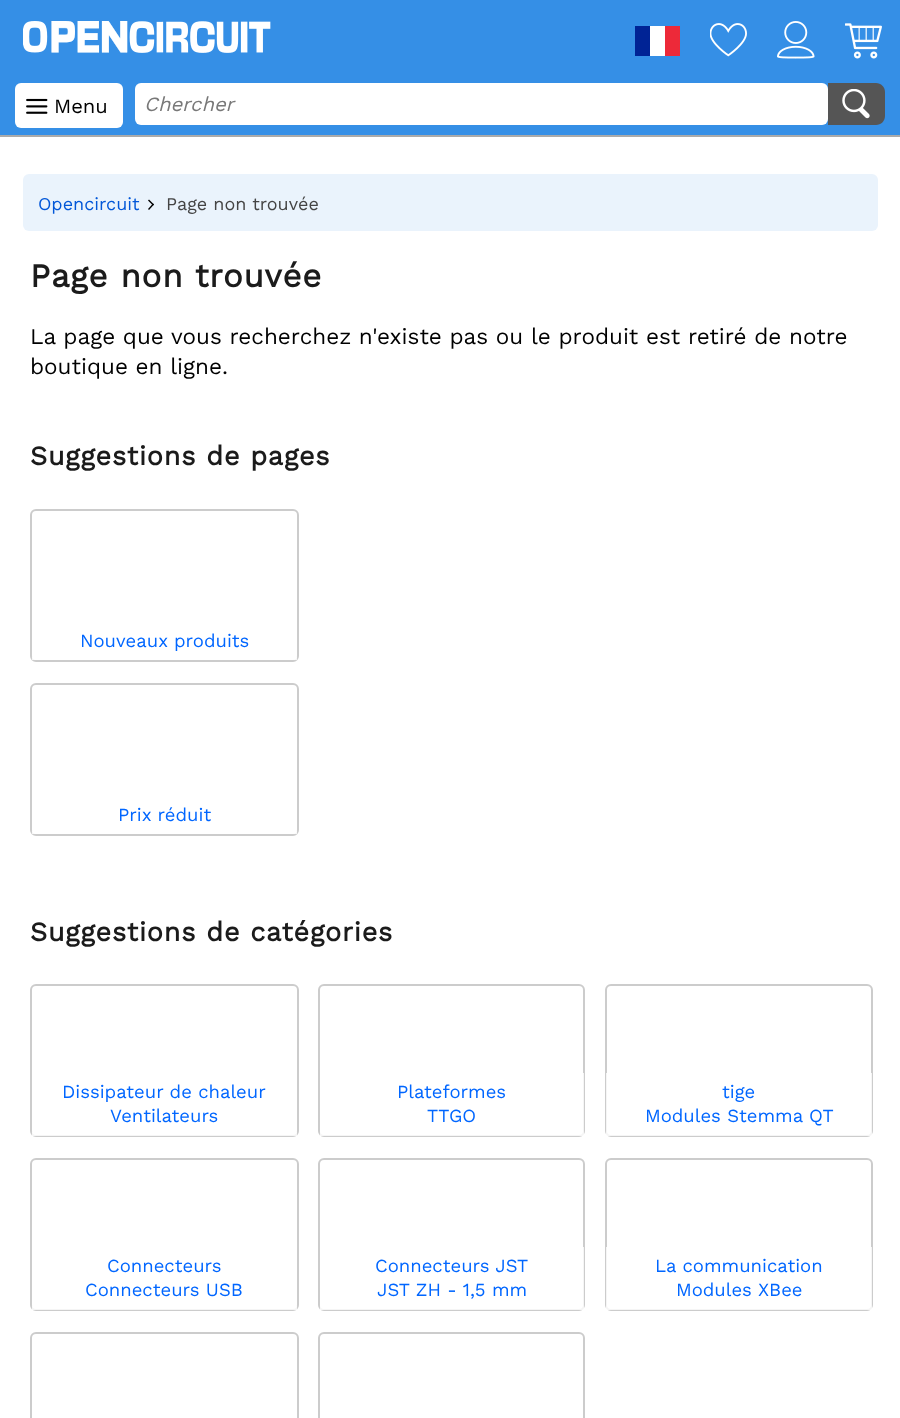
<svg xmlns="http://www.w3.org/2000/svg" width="900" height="1418">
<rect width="100%" height="100%" fill="#fff"/>
<rect y="135" width="900" height="2" fill="#aaa"/>
<rect width="900" height="135" fill="#358fe6"/>
<image x="23" y="21" width="248" height="32" href="media/1.png"/>
<rect x="635" y="26" width="15" height="30" fill="#002395"/>
<rect x="650" y="26" width="15" height="30" fill="#fff"/>
<rect x="665" y="26" width="15" height="30" fill="#ed2939"/>
<image x="710" y="23" width="37" height="34" href="media/2.png"/>
<image x="777" y="21" width="38" height="38" href="media/3.png"/>
<image x="845" y="23" width="37" height="36" href="media/4.png"/>
<rect x="15" y="83" width="108" height="45" rx="6" fill="#fff"/>
<image x="26" y="98" width="22" height="16" href="media/5.png"/>
<text x="54" y="113" style="font-family:Work Sans;font-size:20.25px;fill:#000">Menu</text>
<rect x="135" y="83" width="693" height="42" rx="6" fill="#fff"/>
<text x="144" y="111" style="font-family:Work Sans;font-size:20.25px;font-style:italic;fill:#787878">Chercher</text>
<path d="M828 83h48c5 0 9 4 9 9v24c0 5-4 9-9 9h-48z" fill="#555"/>
<image x="842" y="89" width="28" height="30" href="media/6.png"/>
<rect x="23" y="174" width="855" height="57" rx="6" fill="#eaf3fc"/>
<text x="38" y="210" style="font-family:Work Sans;font-size:18px;fill:#0257d8">Opencircuit</text>
<path d="M148 200.5l1-1l5 5l-1 1z" fill="#000"/>
<path d="M148 209l5-5.5l1 1l-5 5.5z" fill="#000"/>
<text x="166" y="210" style="font-family:Work Sans;font-size:18px;fill:#444">Page non trouvée</text>
<text x="30" y="287" style="font-family:Work Sans;font-size:33px;font-weight:bold;letter-spacing:0.75px;fill:#1b1b1b">Page non trouvée</text>
<text x="30" y="344" style="font-family:Work Sans;font-size:22.5px;fill:#000">La page que vous recherchez n'existe pas ou le produit est retiré de notre</text>
<text x="30" y="374" style="font-family:Work Sans;font-size:22.5px;fill:#000">boutique en ligne.</text>
<text x="30" y="465" style="font-family:Work Sans;font-size:27px;font-weight:bold;letter-spacing:0.75px;fill:#1b1b1b">Suggestions de pages</text>
<rect x="31" y="510" width="267" height="151" rx="5" fill="none" stroke="#ccc" stroke-width="2"/>
<rect x="32" y="657" width="265" height="3" fill="#ffffffcc"/>
<text x="80" y="647" style="font-family:Work Sans;font-size:18.5px;fill:#06f">Nouveaux produits</text>
<rect x="31" y="684" width="267" height="151" rx="5" fill="none" stroke="#ccc" stroke-width="2"/>
<rect x="32" y="831" width="265" height="3" fill="#ffffffcc"/>
<text x="118" y="821" style="font-family:Work Sans;font-size:18.5px;fill:#06f">Prix réduit</text>
<text x="30" y="941" style="font-family:Work Sans;font-size:27px;font-weight:bold;letter-spacing:0.75px;fill:#1b1b1b">Suggestions de catégories</text>
<rect x="31" y="985" width="267" height="151" rx="5" fill="none" stroke="#ccc" stroke-width="2"/>
<rect x="32" y="1132" width="265" height="4" fill="#ffffffcc"/>
<text x="62" y="1098" style="font-family:Work Sans;font-size:18.5px;fill:#06f">Dissipateur de chaleur</text>
<text x="110" y="1122" style="font-family:Work Sans;font-size:18.5px;fill:#06f">Ventilateurs</text>
<rect x="319" y="985" width="265" height="151" rx="5" fill="none" stroke="#ccc" stroke-width="2"/>
<rect x="320" y="1073" width="264" height="63" fill="#ffffffcc"/>
<text x="397" y="1098" style="font-family:Work Sans;font-size:18.5px;fill:#06f">Plateformes</text>
<text x="427" y="1122" style="font-family:Work Sans;font-size:18.5px;fill:#06f">TTGO</text>
<rect x="606" y="985" width="266" height="151" rx="5" fill="none" stroke="#ccc" stroke-width="2"/>
<rect x="606" y="1073" width="266" height="63" fill="#ffffffcc"/>
<text x="722" y="1098" style="font-family:Work Sans;font-size:18.5px;fill:#06f">tige</text>
<text x="645" y="1122" style="font-family:Work Sans;font-size:18.5px;fill:#06f">Modules Stemma QT</text>
<rect x="31" y="1159" width="267" height="151" rx="5" fill="none" stroke="#ccc" stroke-width="2"/>
<rect x="32" y="1306" width="265" height="4" fill="#ffffffcc"/>
<text x="107" y="1272" style="font-family:Work Sans;font-size:18.5px;fill:#06f">Connecteurs</text>
<text x="85" y="1296" style="font-family:Work Sans;font-size:18.5px;fill:#06f">Connecteurs USB</text>
<rect x="319" y="1159" width="265" height="151" rx="5" fill="none" stroke="#ccc" stroke-width="2"/>
<rect x="320" y="1247" width="264" height="63" fill="#ffffffcc"/>
<text x="375" y="1272" style="font-family:Work Sans;font-size:18.5px;fill:#06f">Connecteurs JST</text>
<text x="377" y="1296" style="font-family:Work Sans;font-size:18.5px;fill:#06f">JST ZH - 1,5 mm</text>
<rect x="606" y="1159" width="266" height="151" rx="5" fill="none" stroke="#ccc" stroke-width="2"/>
<rect x="606" y="1247" width="266" height="63" fill="#ffffffcc"/>
<text x="655" y="1272" style="font-family:Work Sans;font-size:18.5px;fill:#06f">La communication</text>
<text x="676" y="1296" style="font-family:Work Sans;font-size:18.5px;fill:#06f">Modules XBee</text>
<rect x="31" y="1333" width="267" height="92" rx="5" fill="none" stroke="#ccc" stroke-width="2"/>
<rect x="319" y="1333" width="265" height="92" rx="5" fill="none" stroke="#ccc" stroke-width="2"/>
</svg>
